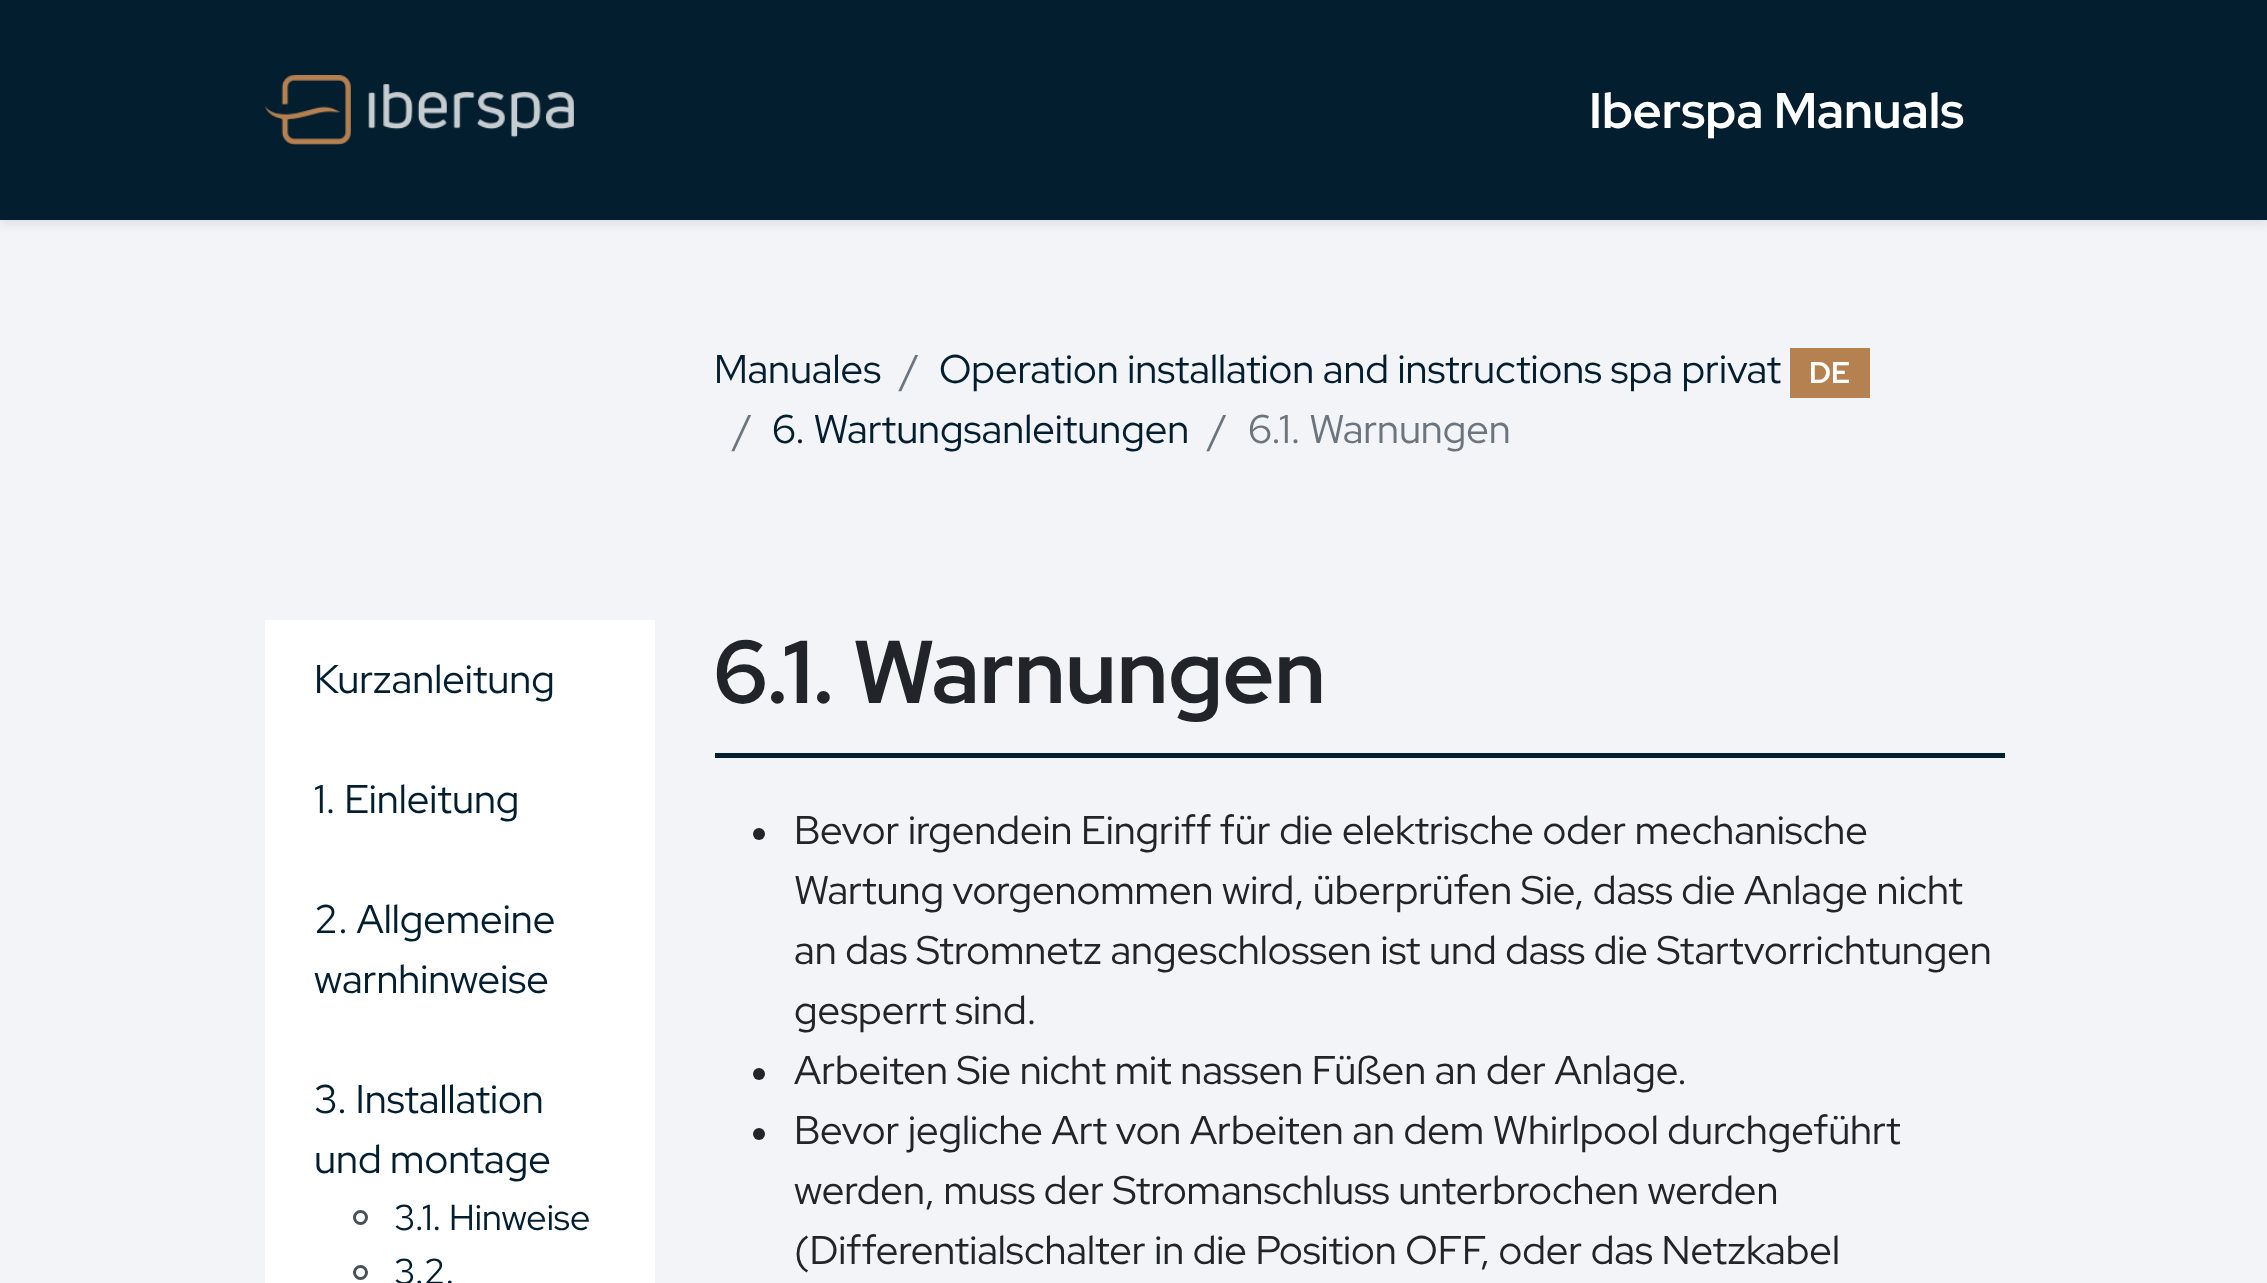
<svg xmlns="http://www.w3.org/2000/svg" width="2267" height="1283">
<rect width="100%" height="100%" fill="#f3f4f8"/>
<rect y="5" width="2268" height="220" fill="#00000012" filter="blur(5px)"/>
<rect width="2267" height="220" fill="#021e2f"/>
<image x="265" y="75" width="309" height="70" href="media/1.png"/>
<text x="1589" y="128" style="font-family:Red Hat Display;font-size:50px;font-weight:bold;fill:#fff">Iberspa Manuals</text>
<text x="714" y="383" style="font-family:Red Hat Display;font-size:40px;fill:#021e2f">Manuales</text>
<text x="901" y="383" style="font-family:Red Hat Display;font-size:40px;fill:#6c757d">/</text>
<text x="939" y="383" style="font-family:Red Hat Display;font-size:40px;fill:#021e2f">Operation installation and instructions spa privat</text>
<rect x="1790" y="348" width="80" height="50" fill="#b58150"/>
<text x="1809" y="383" style="font-family:Red Hat Display;font-size:30px;font-weight:bold;fill:#fff">DE</text>
<text x="734" y="443" style="font-family:Red Hat Display;font-size:40px;fill:#6c757d">/</text>
<text x="772" y="443" style="font-family:Red Hat Display;font-size:40px;fill:#021e2f">6. Wartungsanleitungen</text>
<text x="1209" y="443" style="font-family:Red Hat Display;font-size:40px;fill:#6c757d">/</text>
<text x="1248" y="443" style="font-family:Red Hat Display;font-size:40px;fill:#6c757d">6.1. Warnungen</text>
<rect x="265" y="620" width="390" height="663" fill="#fff"/>
<text x="314" y="693" style="font-family:Red Hat Display;font-size:40px;fill:#021e2f">Kurzanleitung</text>
<text x="314" y="813" style="font-family:Red Hat Display;font-size:40px;fill:#021e2f">1. Einleitung</text>
<text x="314" y="933" style="font-family:Red Hat Display;font-size:40px;fill:#021e2f">2. Allgemeine</text>
<text x="314" y="993" style="font-family:Red Hat Display;font-size:40px;fill:#021e2f">warnhinweise</text>
<text x="314" y="1113" style="font-family:Red Hat Display;font-size:40px;fill:#021e2f">3. Installation</text>
<text x="314" y="1173" style="font-family:Red Hat Display;font-size:40px;fill:#021e2f">und montage</text>
<circle cx="360.5" cy="1217.5" r="6" fill="none" stroke="#495057" stroke-width="3"/>
<text x="394" y="1230" style="font-family:Red Hat Display;font-size:36px;fill:#021e2f">3.1. Hinweise</text>
<circle cx="360.5" cy="1272.5" r="6" fill="none" stroke="#495057" stroke-width="3"/>
<text x="394" y="1284" style="font-family:Red Hat Display;font-size:36px;fill:#021e2f">3.2.</text>
<rect x="715" y="753" width="1290" height="5" fill="#021e2f"/>
<text x="714" y="703" style="font-family:Red Hat Display;font-size:89px;font-weight:bold;fill:#212529">6.1. Warnungen</text>
<circle cx="759" cy="834" r="6" fill="#212529"/>
<text x="794" y="844" style="font-family:Red Hat Display;font-size:40px;fill:#212529">Bevor irgendein Eingriff für die elektrische oder mechanische</text>
<text x="794" y="904" style="font-family:Red Hat Display;font-size:40px;fill:#212529">Wartung vorgenommen wird, überprüfen Sie, dass die Anlage nicht</text>
<text x="794" y="964" style="font-family:Red Hat Display;font-size:40px;fill:#212529">an das Stromnetz angeschlossen ist und dass die Startvorrichtungen</text>
<text x="794" y="1024" style="font-family:Red Hat Display;font-size:40px;fill:#212529">gesperrt sind.</text>
<circle cx="759" cy="1074" r="6" fill="#212529"/>
<text x="794" y="1084" style="font-family:Red Hat Display;font-size:40px;fill:#212529">Arbeiten Sie nicht mit nassen Füßen an der Anlage.</text>
<circle cx="759" cy="1134" r="6" fill="#212529"/>
<text x="794" y="1144" style="font-family:Red Hat Display;font-size:40px;fill:#212529">Bevor jegliche Art von Arbeiten an dem Whirlpool durchgeführt</text>
<text x="794" y="1204" style="font-family:Red Hat Display;font-size:40px;fill:#212529">werden, muss der Stromanschluss unterbrochen werden</text>
<text x="794" y="1264" style="font-family:Red Hat Display;font-size:40px;fill:#212529">(Differentialschalter in die Position OFF, oder das Netzkabel</text>
</svg>
